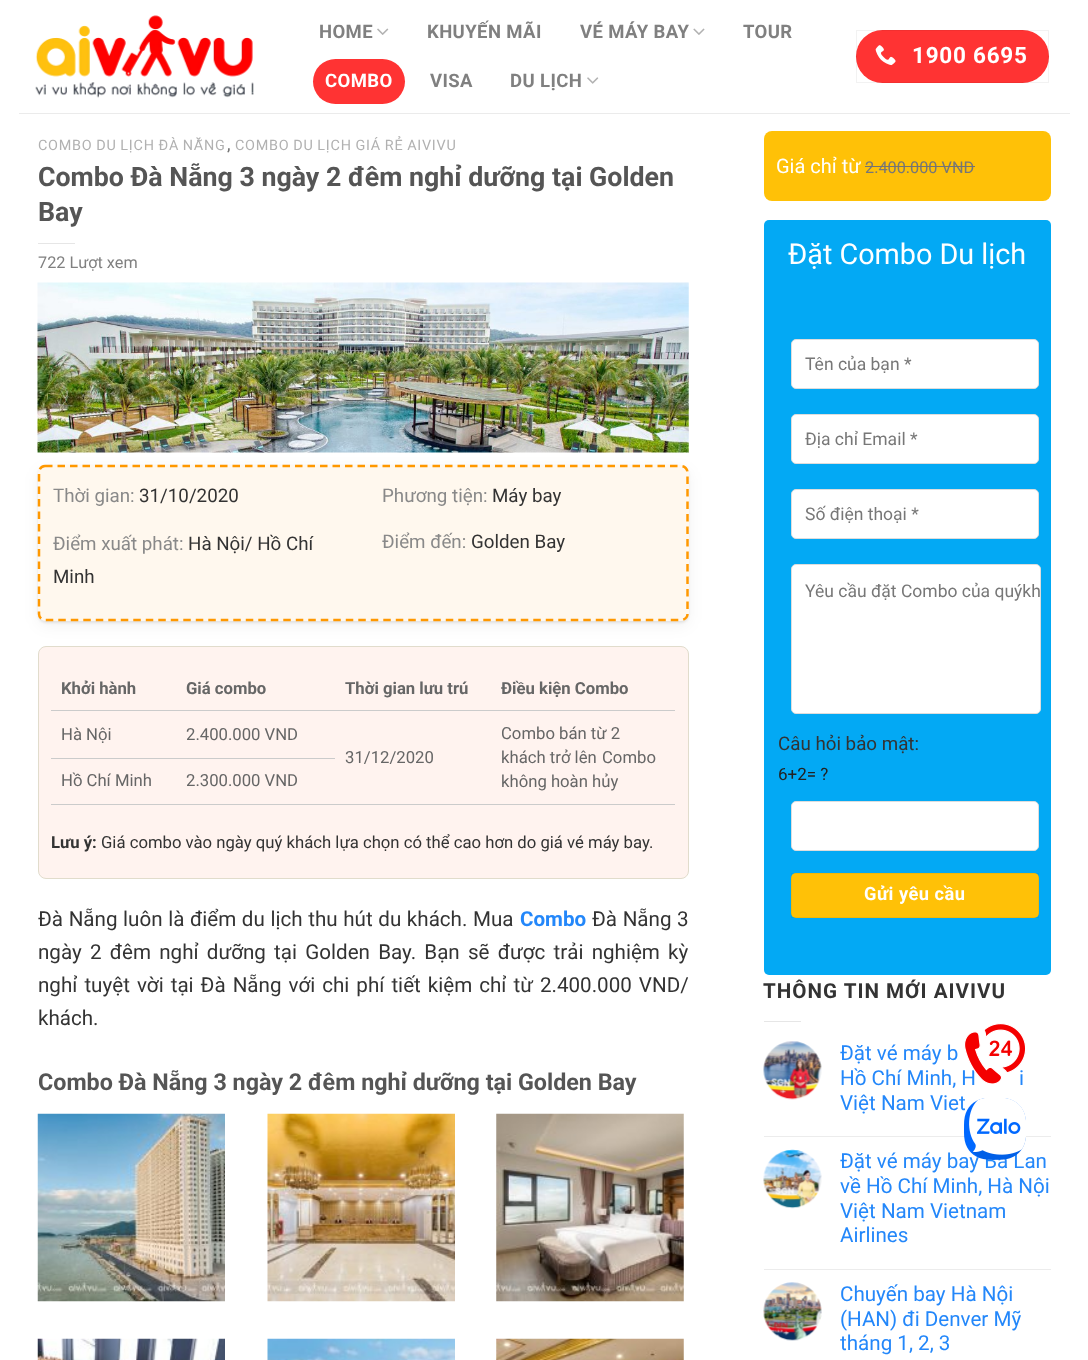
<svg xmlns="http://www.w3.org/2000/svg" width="1088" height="1360">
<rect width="100%" height="100%" fill="#fff"/>
<image x="35" y="15" width="219" height="83" href="media/1.png"/>
<text x="319" y="38" style="font-family:Roboto;font-size:18.5px;font-weight:bold;letter-spacing:0.4px;fill:#808080">HOME</text>
<image x="377" y="28" width="12" height="7" href="media/2.png"/>
<text x="427" y="38" style="font-family:Roboto;font-size:18.5px;font-weight:bold;letter-spacing:0.4px;fill:#808080">KHUYẾN MÃI</text>
<text x="580" y="38" style="font-family:Roboto;font-size:18.5px;font-weight:bold;letter-spacing:0.4px;fill:#808080">VÉ MÁY BAY</text>
<image x="693" y="28" width="12" height="7" href="media/3.png"/>
<text x="743" y="38" style="font-family:Roboto;font-size:18.5px;font-weight:bold;letter-spacing:0.4px;fill:#808080">TOUR</text>
<rect x="313" y="59" width="92" height="45" rx="22.5" fill="#f33"/>
<text x="325" y="87" style="font-family:Roboto;font-size:18.5px;font-weight:bold;letter-spacing:0.4px;fill:#fff">COMBO</text>
<text x="430" y="87" style="font-family:Roboto;font-size:18.5px;font-weight:bold;letter-spacing:0.4px;fill:#808080">VISA</text>
<text x="510" y="87" style="font-family:Roboto;font-size:18.5px;font-weight:bold;letter-spacing:0.4px;fill:#808080">DU LỊCH</text>
<image x="587" y="77" width="12" height="7" href="media/4.png"/>
<rect x="856" y="30" width="193" height="53" rx="26.5" fill="#f33"/>
<rect x="856.5" y="30.5" width="192" height="52" fill="none" stroke="#0000000d"/>
<image x="875" y="45" width="21" height="21" href="media/5.png"/>
<text x="912" y="63" style="font-family:Roboto;font-size:22.5px;font-weight:bold;letter-spacing:0.75px;fill:#fff">1900 6695</text>
<rect x="19" y="113" width="1051" height="1" fill="#ebebeb"/>
<text x="38" y="150" word-spacing="-0.5" style="font-family:Roboto;font-size:14.4px;letter-spacing:0.75px;fill:#b1b1b1">COMBO DU LỊCH ĐÀ NẴNG</text>
<text x="227" y="150" style="font-family:Roboto;font-size:14.4px;font-weight:bold;letter-spacing:0.75px;fill:#777">,</text>
<text x="235" y="150" word-spacing="-0.5" style="font-family:Roboto;font-size:14.4px;letter-spacing:0.75px;fill:#b1b1b1">COMBO DU LỊCH GIÁ RẺ AIVIVU</text>
<text x="38" y="186" style="font-family:Roboto;font-size:26.75px;font-weight:bold;fill:#555">Combo Đà Nẵng 3 ngày 2 đêm nghỉ dưỡng tại Golden</text>
<text x="38" y="221" style="font-family:Roboto;font-size:26.75px;font-weight:bold;fill:#555">Bay</text>
<rect x="38" y="243" width="37" height="1" fill="#e6e6e6"/>
<text x="38" y="268" style="font-family:Roboto;font-size:16.25px;fill:#808080">722 Lượt xem</text>
<image x="37" y="282" width="652" height="171" href="media/6.png"/>
<rect x="38.5" y="646.5" width="650" height="232" rx="7.5" fill="#fff3ef" stroke="#e1dccc"/>
<rect x="38" y="470" width="651" height="156" rx="8" fill="#0000000d" filter="blur(7.5px)"/>
<rect x="38" y="466" width="651" height="157" rx="8" fill="#00000014" filter="blur(1px)"/>
<rect x="38" y="465" width="651" height="156" rx="8" fill="#fff8ee"/>
<path d="M45 466h636c3.5 0 6.5 3 6.5 6.5v141.5c0 3-3 6-6.5 6h-636c-3.5 0-6-3-6-6v-141.5c0-3.5 2.5-6.5 6-6.5z" fill="none" stroke="#ff9800" stroke-width="2.5" stroke-dasharray="7.5 5"/>
<text x="53" y="502" style="font-family:Roboto;font-size:18.75px;fill:#898989">Thời gian:</text>
<text x="139" y="502" style="font-family:Roboto;font-size:18.75px;fill:#333">31/10/2020</text>
<text x="382" y="502" style="font-family:Roboto;font-size:18.75px;fill:#898989">Phương tiện:</text>
<text x="492" y="502" style="font-family:Roboto;font-size:18.75px;fill:#333">Máy bay</text>
<text x="53" y="550" style="font-family:Roboto;font-size:18.75px;fill:#898989">Điểm xuất phát:</text>
<text x="188" y="550" style="font-family:Roboto;font-size:18.75px;fill:#333">Hà Nội/ Hồ Chí</text>
<text x="53" y="583" style="font-family:Roboto;font-size:18.75px;fill:#333">Minh</text>
<text x="382" y="548" style="font-family:Roboto;font-size:18.75px;fill:#898989">Điểm đến:</text>
<text x="471" y="548" style="font-family:Roboto;font-size:18.75px;fill:#333">Golden Bay</text>
<rect x="51" y="710" width="624" height="1" fill="#cbcbcb"/>
<text x="61" y="694" style="font-family:Roboto;font-size:16.7px;font-weight:bold;fill:#666">Khởi hành</text>
<text x="186" y="694" style="font-family:Roboto;font-size:16.7px;font-weight:bold;fill:#666">Giá combo</text>
<text x="345" y="694" style="font-family:Roboto;font-size:16.7px;font-weight:bold;fill:#666">Thời gian lưu trú</text>
<text x="501" y="694" style="font-family:Roboto;font-size:16.7px;font-weight:bold;fill:#666">Điều kiện Combo</text>
<rect x="51" y="758" width="284" height="1" fill="#cbcbcb"/>
<text x="61" y="740" style="font-family:Roboto;font-size:16.7px;fill:#666">Hà Nội</text>
<text x="186" y="740" style="font-family:Roboto;font-size:16.7px;fill:#666">2.400.000 VND</text>
<text x="501" y="739" style="font-family:Roboto;font-size:16.7px;fill:#666">Combo bán từ 2</text>
<text x="501" y="763" style="font-family:Roboto;font-size:16.7px;fill:#666">khách trở lên</text>
<text x="602" y="763" style="font-family:Roboto;font-size:16.7px;fill:#666">Combo</text>
<text x="501" y="787" style="font-family:Roboto;font-size:16.7px;fill:#666">không hoàn hủy</text>
<rect x="335" y="804" width="340" height="1" fill="#cbcbcb"/>
<text x="345" y="763" style="font-family:Roboto;font-size:16.7px;fill:#666">31/12/2020</text>
<rect x="51" y="804" width="284" height="1" fill="#cbcbcb"/>
<text x="61" y="786" style="font-family:Roboto;font-size:16.7px;fill:#666">Hồ Chí Minh</text>
<text x="186" y="786" style="font-family:Roboto;font-size:16.7px;fill:#666">2.300.000 VND</text>
<text x="51" y="848" style="font-family:Roboto;font-size:16.7px;font-weight:bold;fill:#333">Lưu ý:</text>
<text x="101" y="848" style="font-family:Roboto;font-size:16.7px;fill:#333">Giá combo vào ngày quý khách lựa chọn có thể cao hơn do giá vé máy bay.</text>
<text x="38" y="926" word-spacing="0.5" style="font-family:Roboto;font-size:20.6px;fill:#333">Đà Nẵng luôn là điểm du lịch thu hút du khách. Mua</text>
<text x="520" y="926" style="font-family:Roboto;font-size:20.6px;font-weight:bold;fill:#2387fa">Combo</text>
<text x="592" y="926" word-spacing="0.5" style="font-family:Roboto;font-size:20.6px;fill:#333">Đà Nẵng 3</text>
<text x="38" y="959" word-spacing="3.1" style="font-family:Roboto;font-size:20.6px;fill:#333">ngày 2 đêm nghỉ dưỡng tại Golden Bay. Bạn sẽ được trải nghiệm kỳ</text>
<text x="38" y="992" word-spacing="1.9" style="font-family:Roboto;font-size:20.6px;fill:#333">nghỉ tuyệt vời tại Đà Nẵng với chi phí tiết kiệm chỉ từ 2.400.000 VND/</text>
<text x="38" y="1025" style="font-family:Roboto;font-size:20.6px;fill:#333">khách.</text>
<text x="38" y="1090" style="font-family:Roboto;font-size:23.3px;font-weight:bold;fill:#555">Combo Đà Nẵng 3 ngày 2 đêm nghỉ dưỡng tại Golden Bay</text>
<image x="37" y="1113" width="188" height="189" href="media/7.png"/>
<image x="267" y="1113" width="188" height="189" href="media/8.png"/>
<image x="496" y="1113" width="188" height="189" href="media/9.png"/>
<image x="37" y="1338" width="188" height="22" href="media/10.png"/>
<image x="267" y="1338" width="188" height="22" href="media/11.png"/>
<image x="496" y="1338" width="188" height="22" href="media/12.png"/>
<rect x="764" y="131" width="287" height="70" rx="8" fill="#ffc107"/>
<text x="776" y="173" style="font-family:Roboto;font-size:20px;fill:#fff">Giá chỉ từ</text>
<text x="865" y="173" style="font-family:Roboto;font-size:16.25px;fill:#777">2.400.000 VND</text>
<rect x="865" y="166" width="110" height="1" fill="#737373"/>
<rect x="764" y="220" width="287" height="755" rx="5" fill="#03a9f4"/>
<text x="788" y="264" style="font-family:Roboto;font-size:28.75px;fill:#fff">Đặt Combo Du lịch</text>
<rect x="791.5" y="339.5" width="247" height="49" rx="4.5" fill="#fff" stroke="#ddd"/>
<text x="805" y="370" style="font-family:Roboto;font-size:17.5px;fill:#777">Tên của bạn *</text>
<rect x="791.5" y="414.5" width="247" height="49" rx="4.5" fill="#fff" stroke="#ddd"/>
<text x="805" y="445" style="font-family:Roboto;font-size:17.5px;fill:#777">Địa chỉ Email *</text>
<rect x="791.5" y="489.5" width="247" height="49" rx="4.5" fill="#fff" stroke="#ddd"/>
<text x="805" y="520" style="font-family:Roboto;font-size:17.5px;fill:#777">Số điện thoại *</text>
<rect x="791.5" y="564.5" width="249" height="149" rx="4.5" fill="#fff" stroke="#ddd"/>
<text x="805" y="597" style="font-family:Roboto;font-size:17.5px;fill:#777">Yêu cầu đặt Combo của quýkh</text>
<text x="778" y="750" style="font-family:Roboto;font-size:18.75px;fill:#333">Câu hỏi bảo mật:</text>
<text x="778" y="780" style="font-family:Roboto;font-size:17px;fill:#222">6+2= ?</text>
<rect x="791.5" y="801.5" width="247" height="49" rx="4.5" fill="#fff" stroke="#ddd"/>
<rect x="791" y="873" width="248" height="45" rx="5" fill="#ffc107"/>
<rect x="791.5" y="873.5" width="247" height="44" fill="none" stroke="#0000000d"/>
<text x="864" y="900" style="font-family:Roboto;font-size:18.25px;font-weight:bold;letter-spacing:0.5px;fill:#fff">Gửi yêu cầu</text>
<text x="763" y="998" style="font-family:Roboto;font-size:20.6px;font-weight:bold;letter-spacing:1px;fill:#333">THÔNG TIN MỚI AIVIVU</text>
<rect x="764" y="1021" width="37" height="1" fill="#e6e6e6"/>
<image x="763" y="1041" width="59" height="59" href="media/13.png"/>
<text x="840" y="1060" style="font-family:Roboto;font-size:20.6px;fill:#2387fa">Đặt vé máy b</text>
<text x="840" y="1085" style="font-family:Roboto;font-size:20.6px;fill:#2387fa">Hồ Chí Minh, H</text>
<text x="1019" y="1085" style="font-family:Roboto;font-size:20.6px;fill:#2387fa">i</text>
<text x="840" y="1110" style="font-family:Roboto;font-size:20.6px;fill:#2387fa">Việt Nam Viet</text>
<rect x="764" y="1136" width="287" height="1" fill="#ececec"/>
<image x="763" y="1149" width="59" height="60" href="media/14.png"/>
<text x="840" y="1168" style="font-family:Roboto;font-size:20.6px;fill:#2387fa">Đặt vé máy bay Ba Lan</text>
<text x="840" y="1193" style="font-family:Roboto;font-size:20.6px;fill:#2387fa">về Hồ Chí Minh, Hà Nội</text>
<text x="840" y="1218" style="font-family:Roboto;font-size:20.6px;fill:#2387fa">Việt Nam Vietnam</text>
<text x="840" y="1242" style="font-family:Roboto;font-size:20.6px;fill:#2387fa">Airlines</text>
<rect x="764" y="1269" width="287" height="1" fill="#ececec"/>
<image x="763" y="1282" width="59" height="59" href="media/15.png"/>
<text x="840" y="1301" style="font-family:Roboto;font-size:20.6px;fill:#2387fa">Chuyến bay Hà Nội</text>
<text x="840" y="1326" style="font-family:Roboto;font-size:20.6px;fill:#2387fa">(HAN) đi Denver Mỹ</text>
<text x="840" y="1350" style="font-family:Roboto;font-size:20.6px;fill:#2387fa">tháng 1, 2, 3</text>
<image x="964" y="1023" width="62" height="62" href="media/16.png"/>
<image x="964" y="1098" width="62" height="62" href="media/17.png"/>
</svg>
